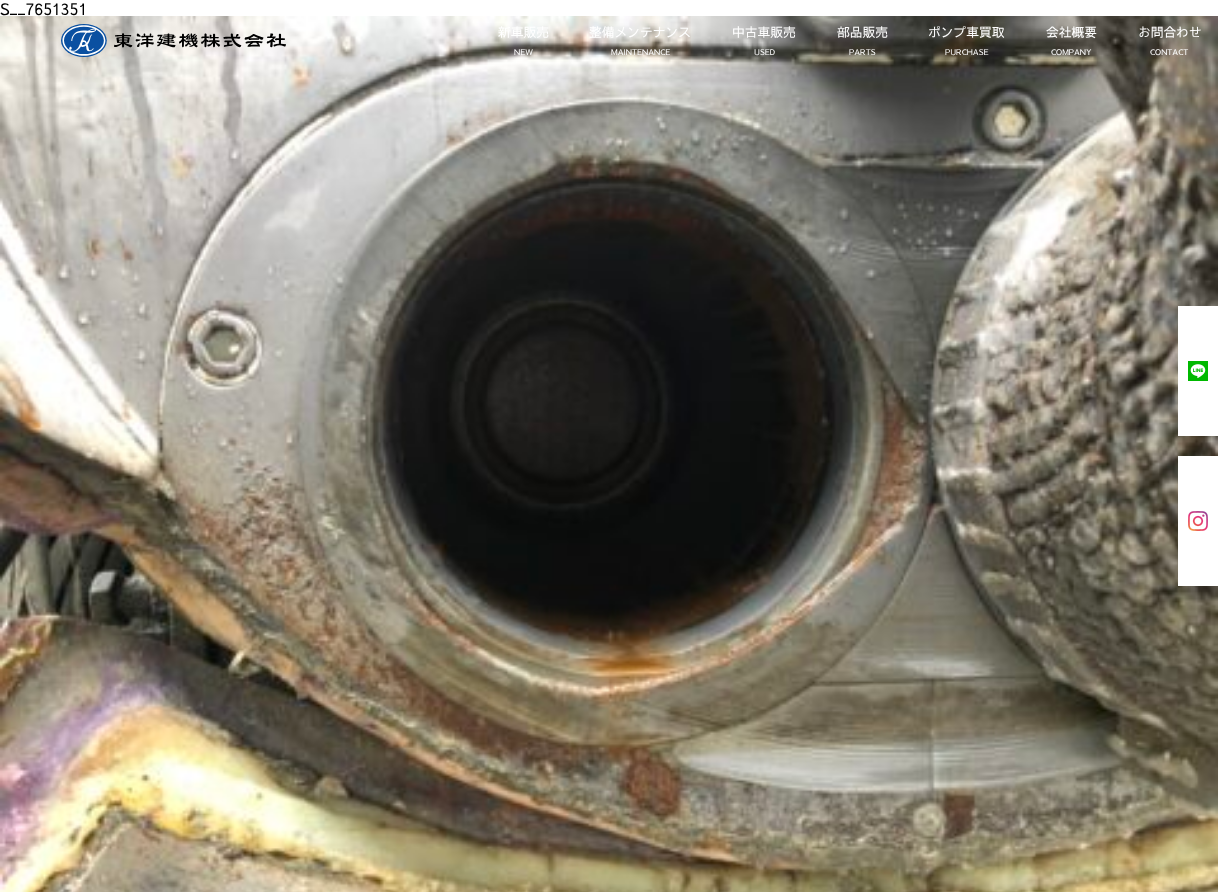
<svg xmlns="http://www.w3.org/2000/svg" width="1218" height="892">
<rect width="100%" height="100%" fill="#fff"/>
<text x="0" y="15" style="font-family:Sawarabi Gothic;font-size:16px;fill:#000">S__7651351</text>
<image x="0" y="16" width="1218" height="876" href="media/1.png"/>
<image x="61" y="24" width="225" height="33" href="media/2.png"/>
<text x="498" y="37" style="font-family:Sawarabi Gothic;font-size:12.75px;fill:#fff">新車販売</text>
<text x="514" y="55" style="font-family:Sawarabi Gothic;font-size:8px;fill:#fff">NEW</text>
<text x="589" y="37" style="font-family:Sawarabi Gothic;font-size:12.75px;fill:#fff">整備メンテナンス</text>
<text x="611" y="55" style="font-family:Sawarabi Gothic;font-size:8px;fill:#fff">MAINTENANCE</text>
<text x="732" y="37" style="font-family:Sawarabi Gothic;font-size:12.75px;fill:#fff">中古車販売</text>
<text x="754" y="55" style="font-family:Sawarabi Gothic;font-size:8px;fill:#fff">USED</text>
<text x="837" y="37" style="font-family:Sawarabi Gothic;font-size:12.75px;fill:#fff">部品販売</text>
<text x="849" y="55" style="font-family:Sawarabi Gothic;font-size:8px;fill:#fff">PARTS</text>
<text x="928" y="37" style="font-family:Sawarabi Gothic;font-size:12.75px;fill:#fff">ポンプ車買取</text>
<text x="945" y="55" style="font-family:Sawarabi Gothic;font-size:8px;fill:#fff">PURCHASE</text>
<text x="1046" y="37" style="font-family:Sawarabi Gothic;font-size:12.75px;fill:#fff">会社概要</text>
<text x="1051" y="55" style="font-family:Sawarabi Gothic;font-size:8px;fill:#fff">COMPANY</text>
<text x="1138" y="37" style="font-family:Sawarabi Gothic;font-size:12.75px;fill:#fff">お問合わせ</text>
<text x="1150" y="55" style="font-family:Sawarabi Gothic;font-size:8px;fill:#fff">CONTACT</text>
<rect x="1178" y="306" width="40" height="130" fill="#fff"/>
<image x="1188" y="361" width="20" height="20" href="media/3.png"/>
<rect x="1178" y="456" width="40" height="130" fill="#fff"/>
<image x="1188" y="511" width="20" height="20" href="media/4.png"/>
</svg>
